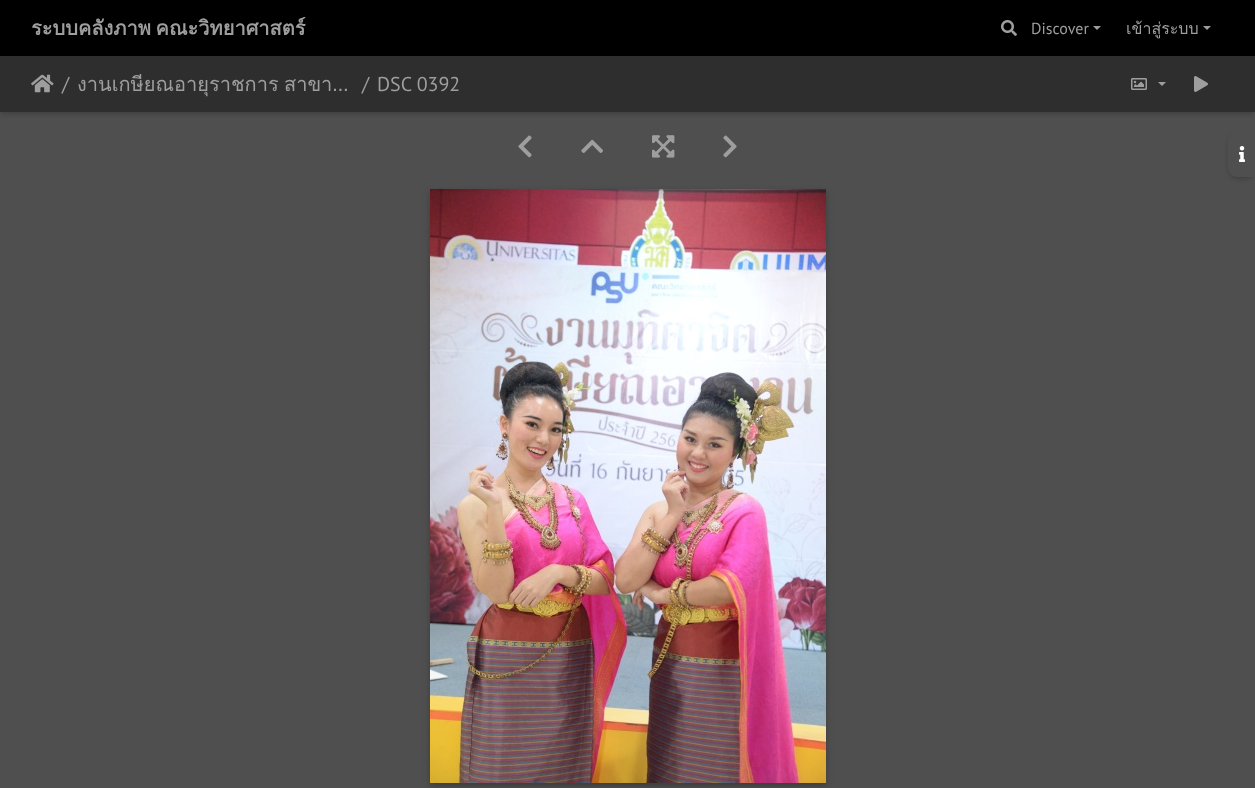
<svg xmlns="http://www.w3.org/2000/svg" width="1255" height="788">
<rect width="100%" height="100%" fill="#4f4f4f"/>
<rect x="1" y="60" width="1253" height="54" fill="#00000033" filter="blur(2.5px)"/>
<rect width="1255" height="56" fill="#000"/>
<text x="31" y="35" word-spacing="-2" style="font-family:Loma;font-size:20px;font-weight:bold;fill:#9e9e9e">ระบบคลังภาพ คณะวิทยาศาสตร์</text>
<image x="1001" y="20" width="16" height="16" href="media/1.png"/>
<text x="1031" y="34" style="font-family:PT Sans;font-size:16px;fill:#9e9e9e">Discover</text>
<path d="M1093 26h8l-4 4z" fill="#9e9e9e"/>
<text x="1126" y="34" style="font-family:Loma;font-size:16px;fill:#9e9e9e">เข้าสู่ระบบ</text>
<path d="M1203 26h8l-4 4z" fill="#9e9e9e"/>
<rect y="56" width="1255" height="56" fill="#2e2e2e"/>
<image x="31" y="74" width="23" height="19" href="media/2.png"/>
<text x="62" y="91" style="font-family:PT Sans;font-size:20px;fill:#9e9e9e">/</text>
<text x="77" y="91" style="font-family:Loma;font-size:20px;fill:#9e9e9e">งานเกษียณอายุราชการ</text>
<text x="284" y="91" style="font-family:Loma;font-size:20px;fill:#9e9e9e">สาขา…</text>
<text x="362" y="91" style="font-family:PT Sans;font-size:20px;fill:#9e9e9e">/</text>
<text x="377" y="91" style="font-family:PT Sans;font-size:20px;fill:#9e9e9e">DSC 0392</text>
<image x="1131" y="78" width="16" height="12" href="media/3.png"/>
<path d="M1158 82h8l-4 4z" fill="#9e9e9e"/>
<image x="1194" y="76" width="14" height="16" href="media/4.png"/>
<image x="518" y="135" width="14" height="23" href="media/5.png"/>
<image x="581" y="139" width="22" height="14" href="media/6.png"/>
<image x="652" y="135" width="23" height="23" href="media/7.png"/>
<image x="723" y="135" width="14" height="23" href="media/8.png"/>
<rect x="1229" y="135" width="25" height="44" rx="9" fill="#00000033" filter="blur(2.5px)"/>
<path d="M1238 131h17v46h-17c-5.5 0-10-4.5-10-10v-26c0-5.5 4.5-10 10-10z" fill="#4f4f4f"/>
<path d="M1238 131h17v46h-17c-6 0-10-4-10-10v-26c0-6 4-10 10-10zm0 1h17v44h-17c-5 0-9-4-9-9v-26c0-5 4-9 9-9z" fill="#4f4f4f" fill-rule="evenodd"/>
<image x="1239" y="146" width="6" height="16" href="media/9.png"/>
<rect x="430" y="192" width="396" height="594" fill="#0000003b" filter="blur(3px)"/>
<image x="430" y="189" width="396" height="594" href="media/10.png"/>
</svg>
